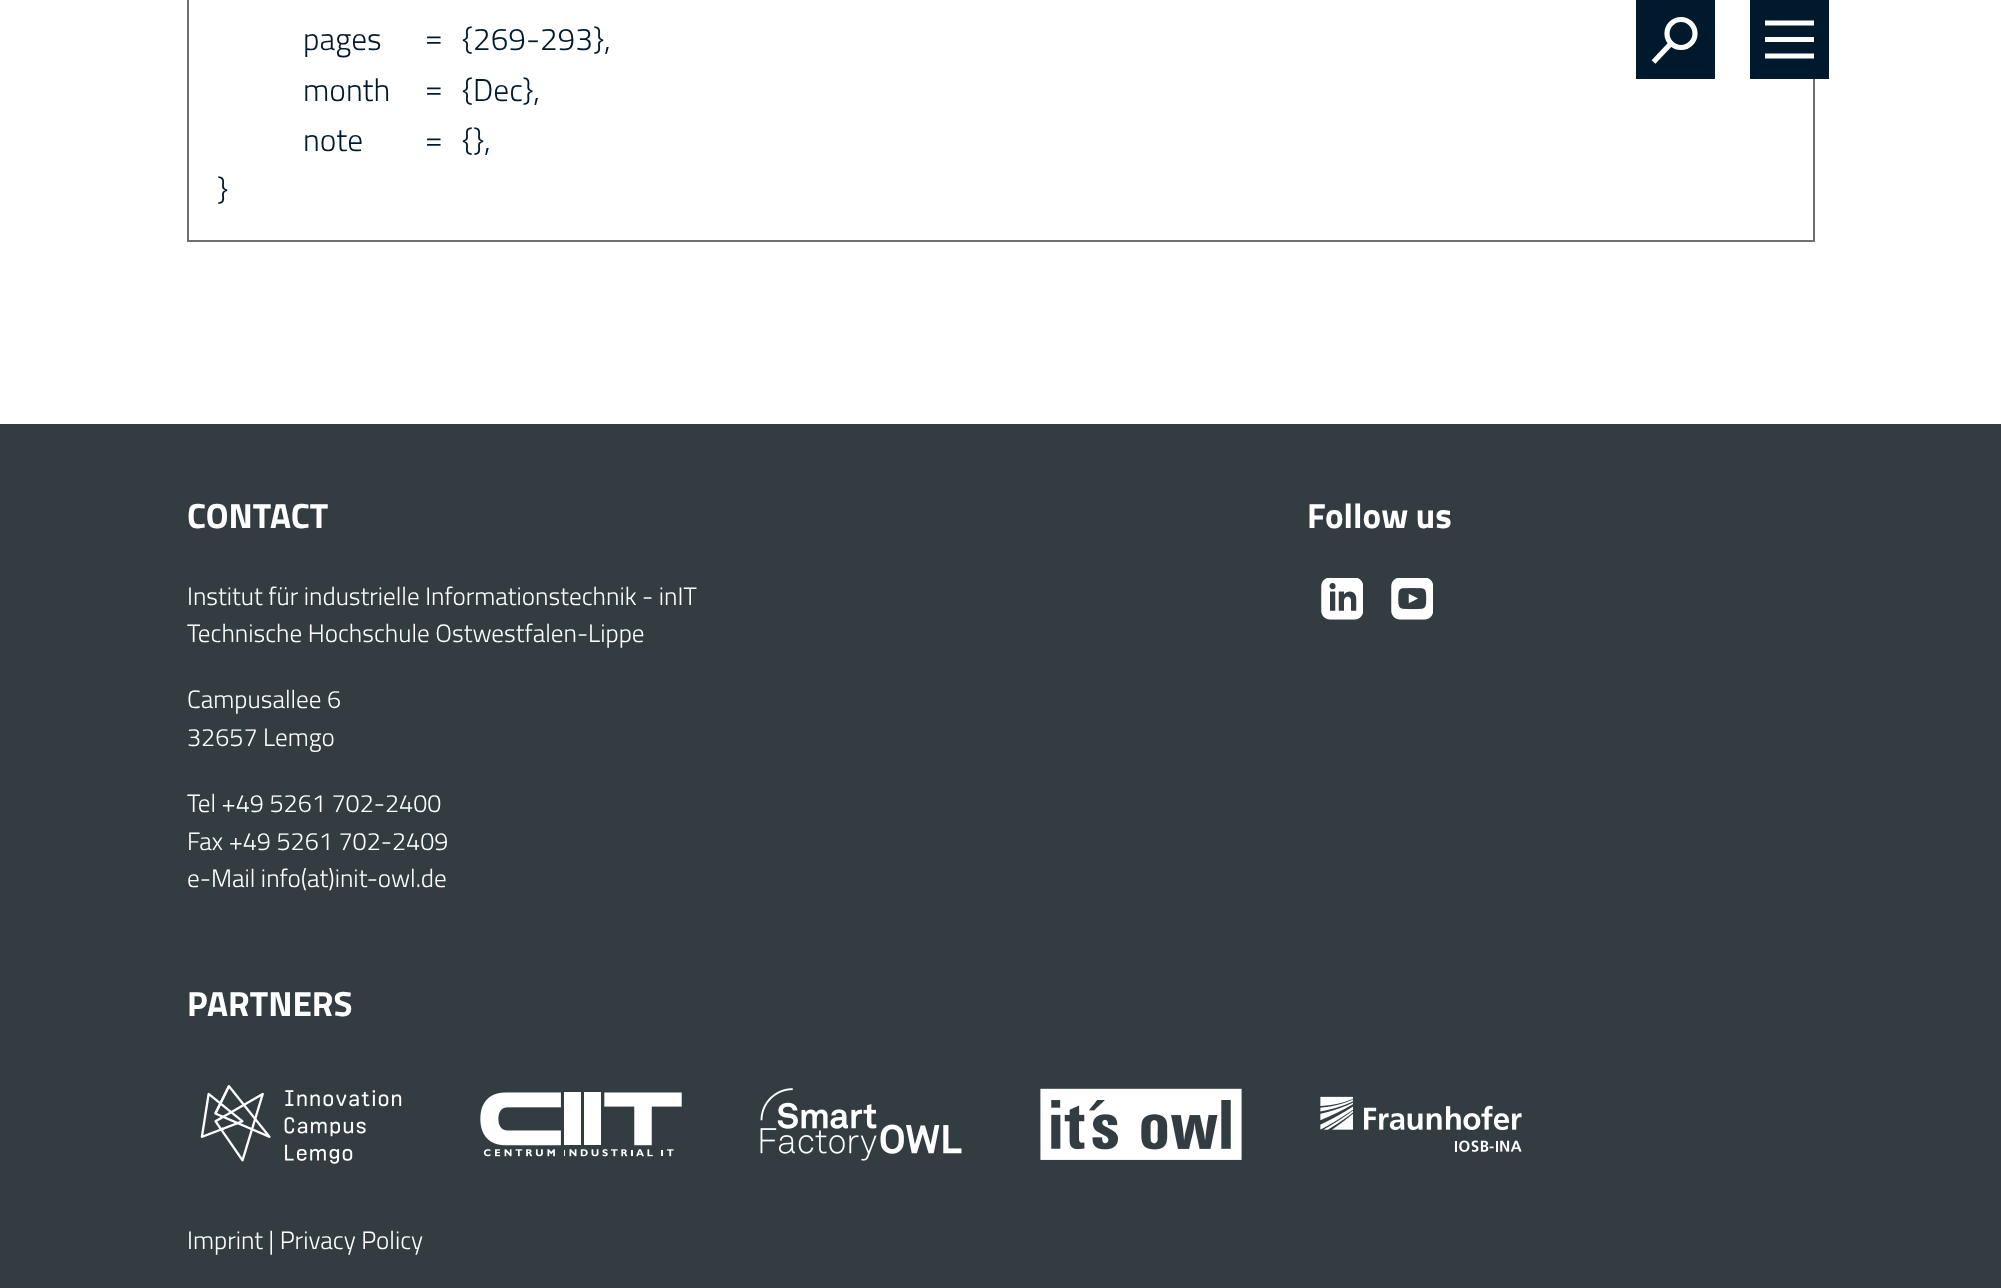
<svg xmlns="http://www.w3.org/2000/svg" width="2001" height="1288">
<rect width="100%" height="100%" fill="#fff"/>
<rect x="188" y="-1" width="1626" height="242" fill="none" stroke="#707070" stroke-width="2"/>
<text x="303" y="50" style="font-family:Titillium Web;font-size:31.5px;font-weight:300;fill:#01192c">pages</text>
<text x="425" y="48" style="font-family:Titillium Web;font-size:31.5px;font-weight:300;fill:#01192c">=</text>
<text x="462" y="50" style="font-family:Titillium Web;font-size:31.5px;font-weight:300;fill:#01192c">{269-293},</text>
<text x="303" y="101" style="font-family:Titillium Web;font-size:31.5px;font-weight:300;fill:#01192c">month</text>
<text x="425" y="99" style="font-family:Titillium Web;font-size:31.5px;font-weight:300;fill:#01192c">=</text>
<text x="462" y="101" style="font-family:Titillium Web;font-size:31.5px;font-weight:300;fill:#01192c">{Dec},</text>
<text x="303" y="151" style="font-family:Titillium Web;font-size:31.5px;font-weight:300;fill:#01192c">note</text>
<text x="425" y="150" style="font-family:Titillium Web;font-size:31.5px;font-weight:300;fill:#01192c">=</text>
<text x="462" y="151" style="font-family:Titillium Web;font-size:31.5px;font-weight:300;fill:#01192c">{},</text>
<text x="217" y="200" style="font-family:Titillium Web;font-size:31.5px;font-weight:300;fill:#01192c">}</text>
<rect x="1636" width="79" height="79" fill="#00192d"/>
<circle cx="1681" cy="33.5" r="14" fill="none" stroke="#fff" stroke-width="5.2"/>
<path d="M1670 44.5l-16.5 17.5" fill="none" stroke="#fff" stroke-width="5.2"/>
<rect x="1750" width="79" height="79" fill="#00192d"/>
<path d="M1765 23h49" fill="none" stroke="#fff" stroke-width="5.2"/>
<rect x="1765" y="37" width="49" height="5" fill="#fff"/>
<path d="M1765 56h49" fill="none" stroke="#fff" stroke-width="5.2"/>
<rect y="424" width="2001" height="864" fill="#323c41"/>
<text x="187" y="528" style="font-family:Titillium Web;font-size:35px;font-weight:bold;fill:#fff">CONTACT</text>
<text x="187" y="605" style="font-family:Titillium Web;font-size:25.2px;font-weight:300;fill:#fff">Institut für industrielle Informationstechnik - inIT</text>
<text x="187" y="642" style="font-family:Titillium Web;font-size:25.2px;font-weight:300;fill:#fff">Technische Hochschule Ostwestfalen-Lippe</text>
<text x="187" y="708" style="font-family:Titillium Web;font-size:25.2px;font-weight:300;fill:#fff">Campusallee 6</text>
<text x="187" y="746" style="font-family:Titillium Web;font-size:25.2px;font-weight:300;fill:#fff">32657 Lemgo</text>
<text x="187" y="812" style="font-family:Titillium Web;font-size:25.2px;font-weight:300;fill:#fff">Tel +49 5261 702-2400</text>
<text x="187" y="850" style="font-family:Titillium Web;font-size:25.2px;font-weight:300;fill:#fff">Fax +49 5261 702-2409</text>
<text x="187" y="887" style="font-family:Titillium Web;font-size:25.2px;font-weight:300;fill:#fff">e-Mail info(at)init-owl.de</text>
<text x="1307" y="528" style="font-family:Titillium Web;font-size:35px;font-weight:bold;fill:#fff">Follow us</text>
<image x="1321" y="578" width="42" height="42" href="media/1.png"/>
<image x="1391" y="578" width="42" height="42" href="media/2.png"/>
<text x="187" y="1016" style="font-family:Titillium Web;font-size:35px;font-weight:bold;fill:#fff">PARTNERS</text>
<image x="200" y="1085" width="202" height="79" href="media/3.png"/>
<image x="480" y="1092" width="202" height="65" href="media/4.png"/>
<image x="760" y="1088" width="202" height="73" href="media/5.png"/>
<image x="1040" y="1088" width="202" height="72" href="media/6.png"/>
<image x="1320" y="1096" width="202" height="56" href="media/7.png"/>
<text x="187" y="1249" style="font-family:Titillium Web;font-size:25.2px;font-weight:300;fill:#fff">Imprint | Privacy Policy</text>
</svg>
